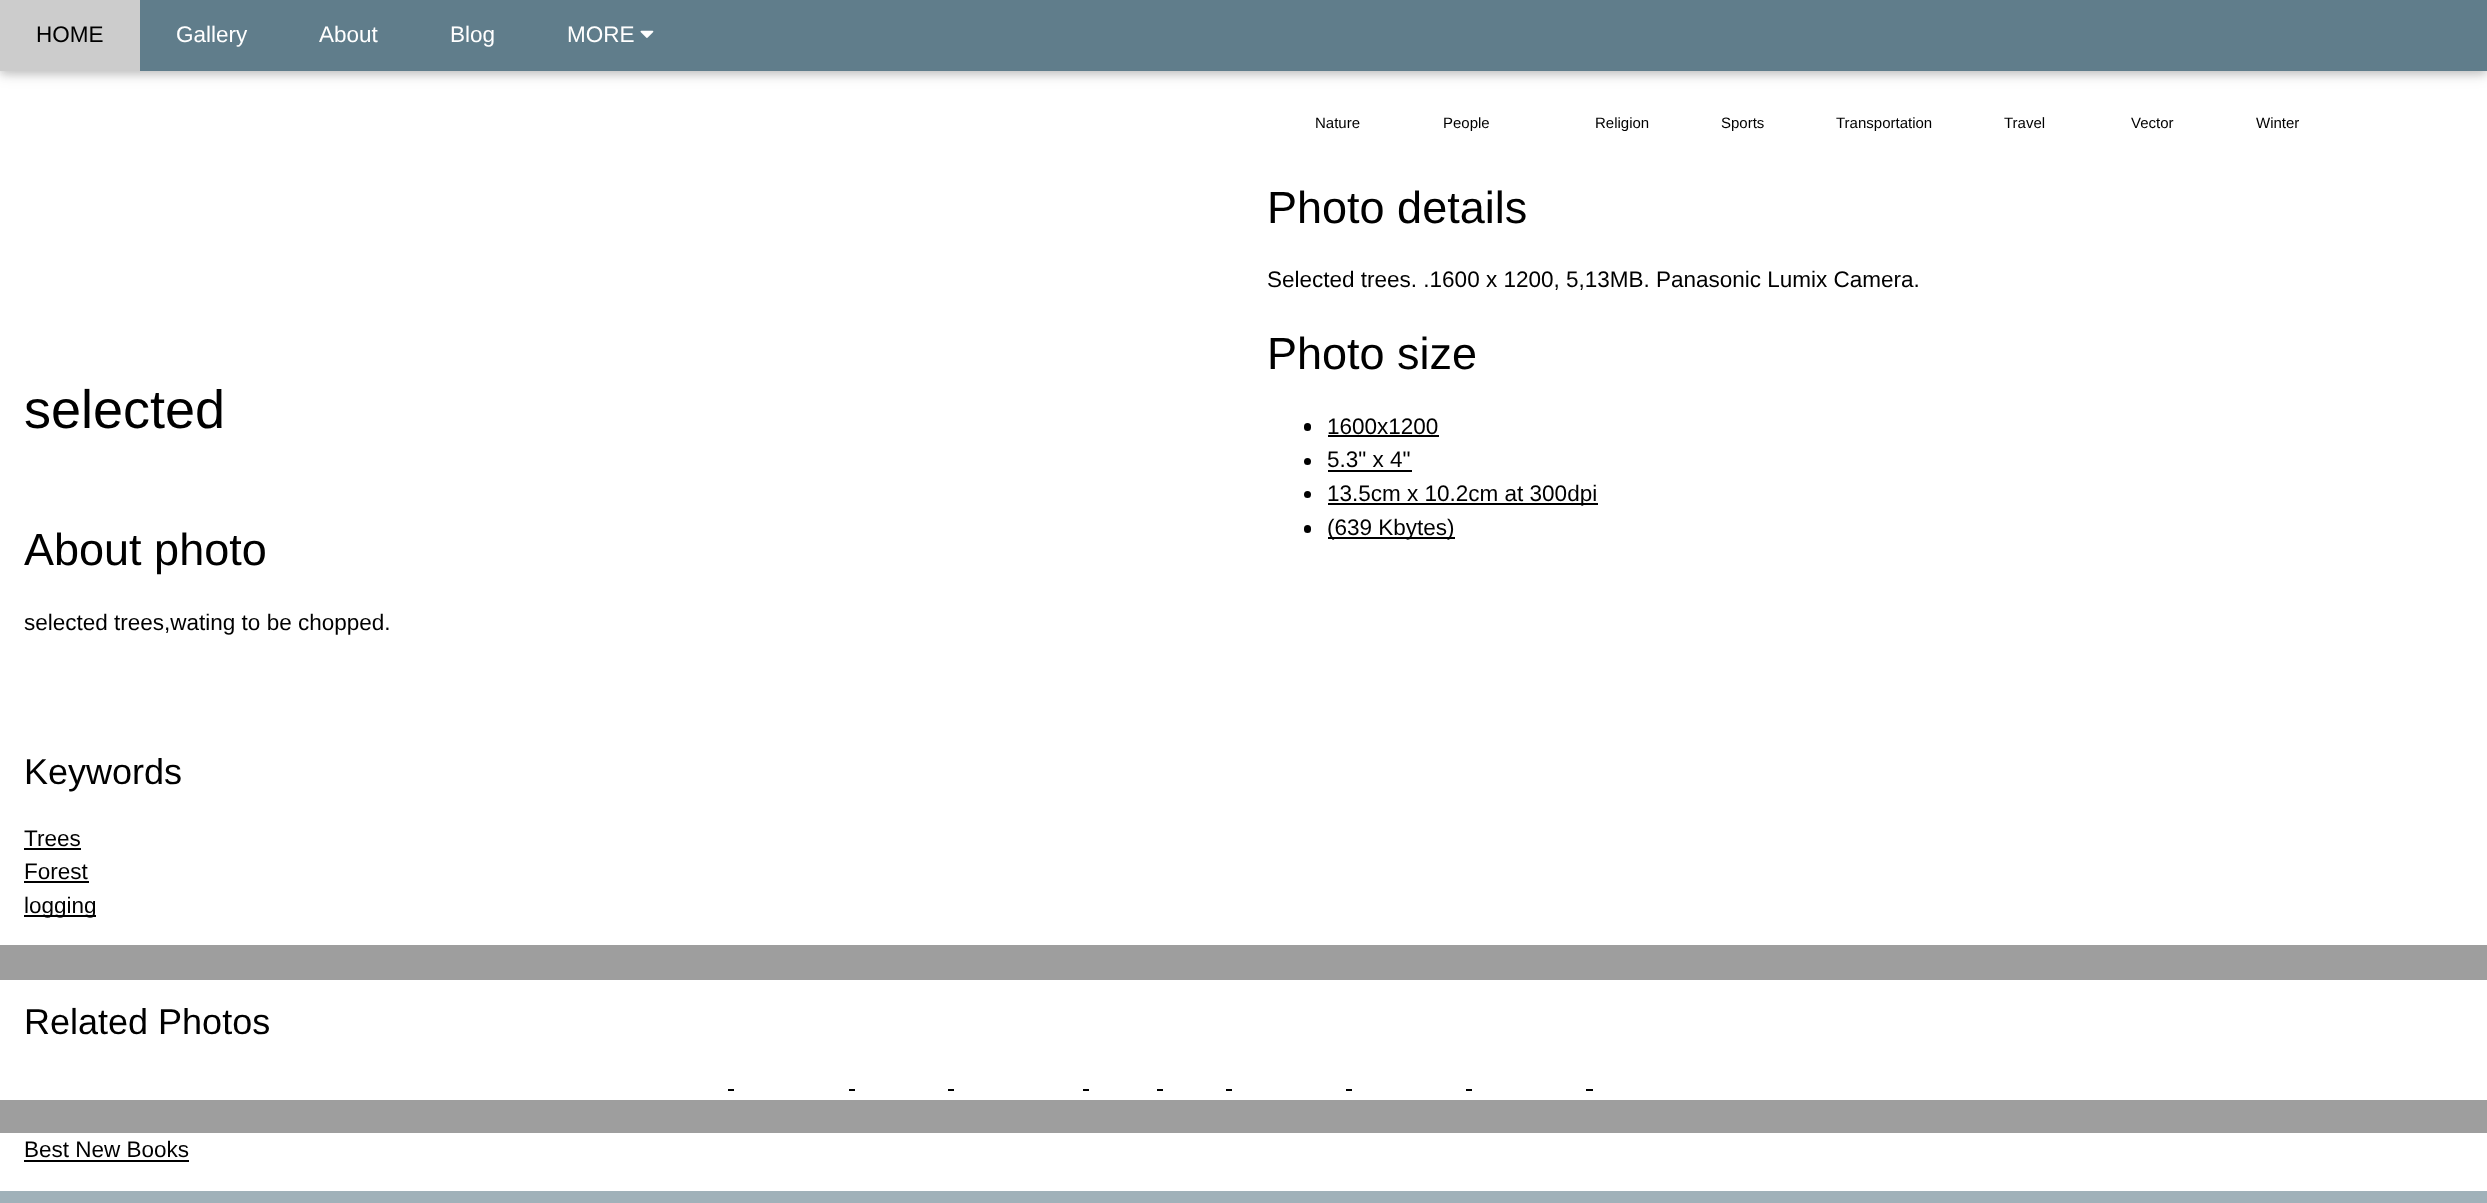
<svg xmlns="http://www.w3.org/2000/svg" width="2487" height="1203">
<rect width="100%" height="100%" fill="#fff"/>
<rect y="3" width="2487" height="71" fill="#0000001f" filter="blur(7.5px)"/>
<rect y="3" width="2487" height="71" fill="#00000029" filter="blur(4px)"/>
<rect x="140" width="2347" height="71" fill="#607d8b"/>
<rect width="140" height="71" fill="#ccc"/>
<text x="36" y="42" style="font-family:Liberation Sans;font-size:22.5px;fill:#000">HOME</text>
<text x="176" y="42" style="font-family:Liberation Sans;font-size:22.5px;fill:#fff">Gallery</text>
<text x="319" y="42" style="font-family:Liberation Sans;font-size:22.5px;fill:#fff">About</text>
<text x="450" y="42" style="font-family:Liberation Sans;font-size:22.5px;fill:#fff">Blog</text>
<text x="567" y="42" style="font-family:Liberation Sans;font-size:22.5px;fill:#fff">MORE</text>
<image x="640" y="30" width="14" height="8" href="media/1.png"/>
<text x="24" y="428" style="font-family:Liberation Sans;font-size:54px;fill:#000">selected</text>
<text x="24" y="565" style="font-family:Liberation Sans;font-size:45px;fill:#000">About photo</text>
<text x="24" y="630" style="font-family:Liberation Sans;font-size:22.5px;fill:#000">selected trees,wating to be chopped.</text>
<text x="1315" y="128" style="font-family:Liberation Sans;font-size:15px;fill:#000">Nature</text>
<text x="1443" y="128" style="font-family:Liberation Sans;font-size:15px;fill:#000">People</text>
<text x="1595" y="128" style="font-family:Liberation Sans;font-size:15px;fill:#000">Religion</text>
<text x="1721" y="128" style="font-family:Liberation Sans;font-size:15px;fill:#000">Sports</text>
<text x="1836" y="128" style="font-family:Liberation Sans;font-size:15px;fill:#000">Transportation</text>
<text x="2004" y="128" style="font-family:Liberation Sans;font-size:15px;fill:#000">Travel</text>
<text x="2131" y="128" style="font-family:Liberation Sans;font-size:15px;fill:#000">Vector</text>
<text x="2256" y="128" style="font-family:Liberation Sans;font-size:15px;fill:#000">Winter</text>
<text x="1267" y="223" style="font-family:Liberation Sans;font-size:45px;fill:#000">Photo details</text>
<text x="1267" y="287" style="font-family:Liberation Sans;font-size:22.5px;fill:#000">Selected trees. .1600 x 1200, 5,13MB. Panasonic Lumix Camera.</text>
<text x="1267" y="369" style="font-family:Liberation Sans;font-size:45px;fill:#000">Photo size</text>
<rect x="1304" y="423" width="7" height="8" rx="3.5" fill="#000"/>
<text x="1327" y="434" style="font-family:Liberation Sans;font-size:22.5px;fill:#000">1600x1200</text>
<rect x="1328" y="435" width="111" height="2" fill="#000"/>
<circle cx="1307.5" cy="461.5" r="3.5" fill="#000"/>
<text x="1327" y="467" style="font-family:Liberation Sans;font-size:22.5px;fill:#000">5.3" x 4"</text>
<rect x="1328" y="470" width="84" height="2" fill="#000"/>
<circle cx="1307.5" cy="494.5" r="3.5" fill="#000"/>
<rect x="1328" y="503" width="270" height="2" fill="#000"/>
<text x="1327" y="501" style="font-family:Liberation Sans;font-size:22.5px;fill:#000">13.5cm x 10.2cm at 300dpi</text>
<rect x="1304" y="525" width="7" height="8" rx="3.5" fill="#000"/>
<rect x="1328" y="537" width="127" height="2" fill="#000"/>
<text x="1327" y="535" style="font-family:Liberation Sans;font-size:22.5px;fill:#000">(639 Kbytes)</text>
<text x="24" y="784" style="font-family:Liberation Sans;font-size:36px;fill:#000">Keywords</text>
<text x="24" y="846" style="font-family:Liberation Sans;font-size:22.5px;fill:#000">Trees</text>
<rect x="24" y="848" width="57" height="2" fill="#000"/>
<text x="24" y="879" style="font-family:Liberation Sans;font-size:22.5px;fill:#000">Forest</text>
<rect x="24" y="881" width="65" height="2" fill="#000"/>
<rect x="24" y="915" width="72" height="2" fill="#000"/>
<text x="24" y="913" style="font-family:Liberation Sans;font-size:22.5px;fill:#000">logging</text>
<rect y="945" width="2487" height="35" fill="#9e9e9e"/>
<text x="24" y="1034" style="font-family:Liberation Sans;font-size:36px;fill:#000">Related Photos</text>
<rect x="728" y="1089" width="6" height="2" fill="#000"/>
<rect x="849" y="1089" width="6" height="2" fill="#000"/>
<rect x="948" y="1089" width="6" height="2" fill="#000"/>
<rect x="1083" y="1089" width="6" height="2" fill="#000"/>
<rect x="1157" y="1089" width="6" height="2" fill="#000"/>
<rect x="1226" y="1089" width="6" height="2" fill="#000"/>
<rect x="1346" y="1089" width="6" height="2" fill="#000"/>
<rect x="1466" y="1089" width="6" height="2" fill="#000"/>
<rect x="1586" y="1089" width="7" height="2" fill="#000"/>
<rect y="1100" width="2487" height="33" fill="#9e9e9e"/>
<text x="24" y="1157" style="font-family:Liberation Sans;font-size:22.5px;fill:#000">Best New Books</text>
<rect x="24" y="1160" width="165" height="2" fill="#000"/>
<rect y="1191" width="2487" height="12" fill="#a0b1b9"/>
</svg>
